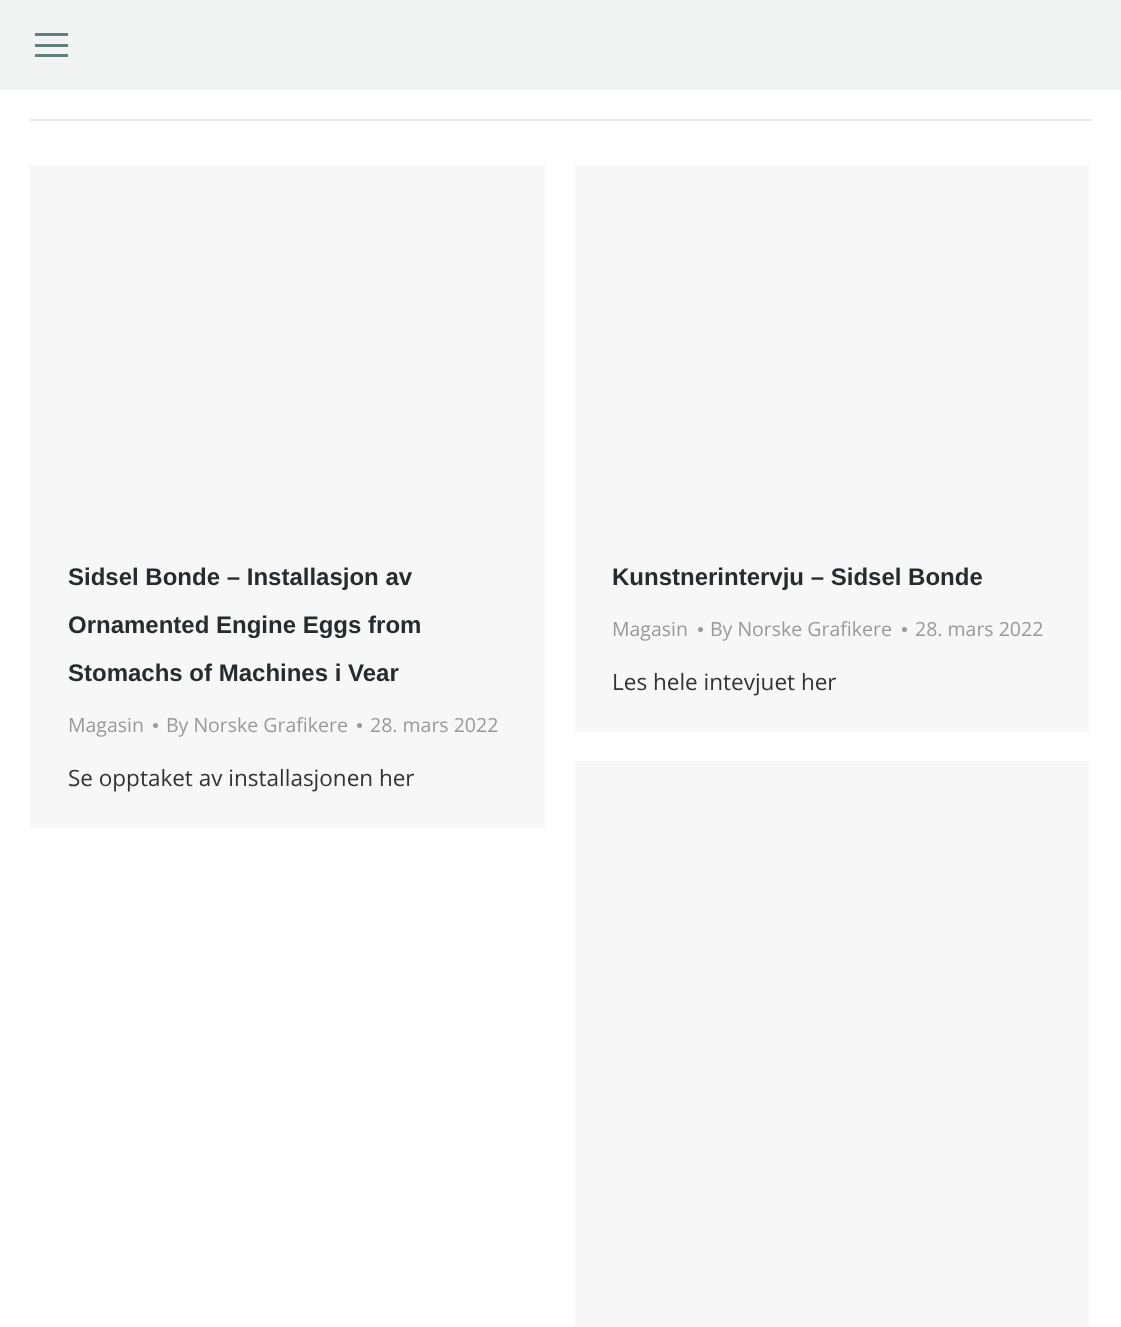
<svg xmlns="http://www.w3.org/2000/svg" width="1121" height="1327">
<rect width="100%" height="100%" fill="#fff"/>
<rect width="1121" height="90" fill="#f2f3f3"/>
<rect x="35" y="33" width="33" height="3" fill="#63817b"/>
<rect x="35" y="44" width="33" height="3" fill="#63817b"/>
<rect x="35" y="54" width="33" height="3" fill="#63817b"/>
<rect x="30" y="119" width="1062" height="2" fill="#e9e9e9"/>
<rect x="30" y="165" width="515" height="663" fill="#f7f7f7"/>
<text x="68" y="585" style="font-family:Liberation Sans;font-size:24px;font-weight:bold;fill:#262b2e">Sidsel Bonde – Installasjon av</text>
<text x="68" y="633" style="font-family:Liberation Sans;font-size:24px;font-weight:bold;fill:#262b2e">Ornamented Engine Eggs from</text>
<text x="68" y="681" style="font-family:Liberation Sans;font-size:24px;font-weight:bold;fill:#262b2e">Stomachs of Machines i Vear</text>
<text x="68" y="732" style="font-family:Open Sans;font-size:19.5px;fill:#999">Magasin</text>
<circle cx="155.5" cy="725.5" r="2.5" fill="#999"/>
<text x="166" y="732" style="font-family:Open Sans;font-size:19.5px;fill:#999">By Norske Grafikere</text>
<circle cx="359.5" cy="725.5" r="2.5" fill="#999"/>
<text x="370" y="732" style="font-family:Open Sans;font-size:19.5px;fill:#999">28. mars 2022</text>
<text x="68" y="786" style="font-family:Open Sans;font-size:22.5px;fill:#333">Se opptaket av installasjonen her</text>
<rect x="575" y="165" width="514" height="567" fill="#f7f7f7"/>
<text x="612" y="585" style="font-family:Liberation Sans;font-size:24px;font-weight:bold;fill:#262b2e">Kunstnerintervju – Sidsel Bonde</text>
<text x="612" y="636" style="font-family:Open Sans;font-size:19.5px;fill:#999">Magasin</text>
<circle cx="700.5" cy="629.5" r="2.5" fill="#999"/>
<text x="710" y="636" style="font-family:Open Sans;font-size:19.5px;fill:#999">By Norske Grafikere</text>
<circle cx="904.5" cy="629.5" r="2.5" fill="#999"/>
<text x="915" y="636" style="font-family:Open Sans;font-size:19.5px;fill:#999">28. mars 2022</text>
<text x="612" y="690" style="font-family:Open Sans;font-size:22.5px;fill:#333">Les hele intevjuet her</text>
<rect x="575" y="761" width="514" height="566" fill="#f7f7f7"/>
</svg>
